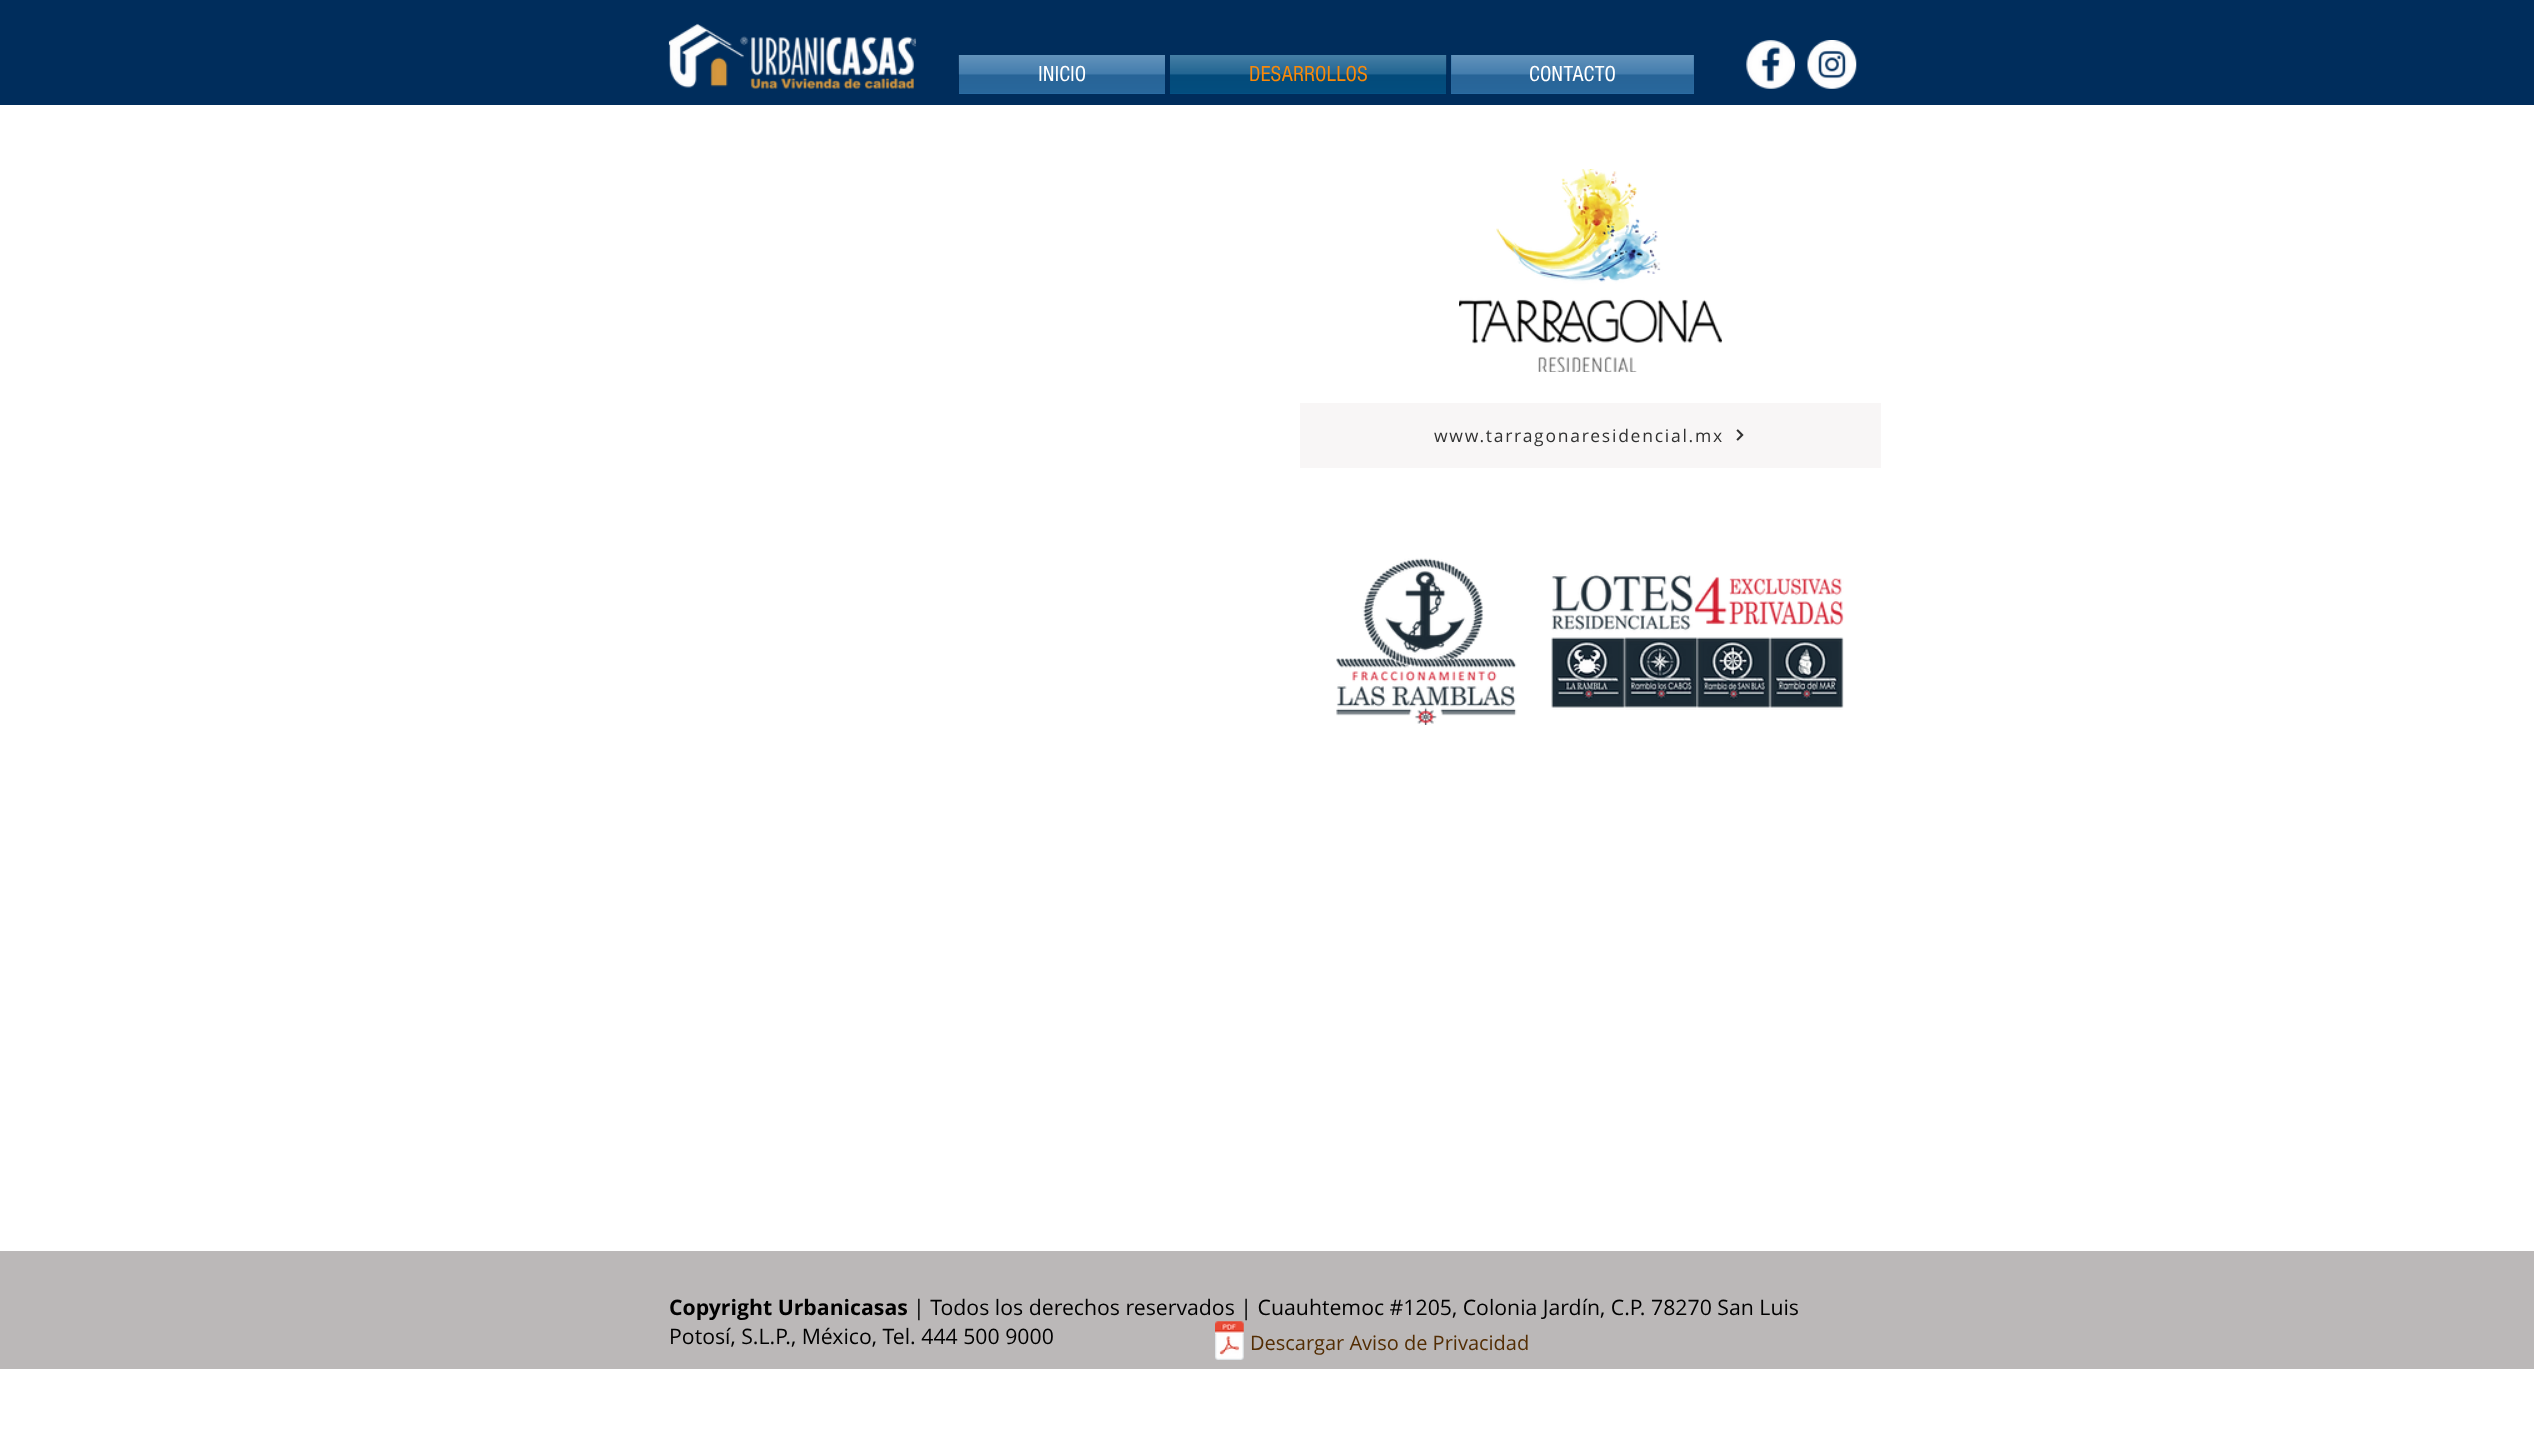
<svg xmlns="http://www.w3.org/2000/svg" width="2534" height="1436">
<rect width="100%" height="100%" fill="#fff"/>
<rect width="2534" height="105" fill="#002d5c"/>
<image x="668" y="23" width="249" height="66" href="media/1.png"/>
<rect x="959" y="55" width="206" height="39" fill="#2b6ca3"/>
<image x="958" y="55" width="207" height="38" href="media/2.png"/>
<text x="1038" y="81" style="font-family:'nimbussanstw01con';font-size:22.5px;fill:#fff">INICIO</text>
<rect x="1170" y="55" width="276" height="39" fill="#045184"/>
<image x="1170" y="55" width="277" height="38" href="media/3.png"/>
<text x="1249" y="81" style="font-family:'nimbussanstw01con';font-size:22.5px;fill:#f98909">DESARROLLOS</text>
<rect x="1451" y="55" width="243" height="39" fill="#2b6ca3"/>
<image x="1451" y="55" width="243" height="38" href="media/4.png"/>
<text x="1529" y="81" style="font-family:'nimbussanstw01con';font-size:22.5px;fill:#fff">CONTACTO</text>
<image x="1746" y="40" width="49" height="49" href="media/5.png"/>
<image x="1807" y="40" width="50" height="49" href="media/6.png"/>
<image x="1459" y="169" width="264" height="203" href="media/7.png"/>
<rect x="1300" y="403" width="581" height="65" fill="#f8f6f6"/>
<text x="1434" y="442" style="font-family:Open Sans;font-size:17.5px;letter-spacing:1.75px;fill:#323232">www.tarragonaresidencial.mx</text>
<image x="1736" y="429" width="8" height="12" href="media/8.png"/>
<image x="1336" y="558" width="508" height="167" href="media/9.png"/>
<rect y="1251" width="2534" height="118" fill="#bbb8b8"/>
<text x="669" y="1315" style="font-family:Open Sans;font-size:21.25px;font-weight:bold;fill:#000">Copyright Urbanicasas</text>
<text x="913" y="1315" style="font-family:Open Sans;font-size:21.25px;fill:#000">| Todos los derechos reservados | Cuauhtemoc #1205, Colonia Jardín, C.P. 78270 San Luis</text>
<text x="669" y="1344" style="font-family:Open Sans;font-size:21.25px;fill:#000">Potosí, S.L.P., México, Tel. 444 500 9000</text>
<image x="1215" y="1321" width="29" height="39" href="media/10.png"/>
<text x="1250" y="1350" style="font-family:Open Sans;font-size:20px;fill:#532d03">Descargar Aviso de Privacidad</text>
</svg>
